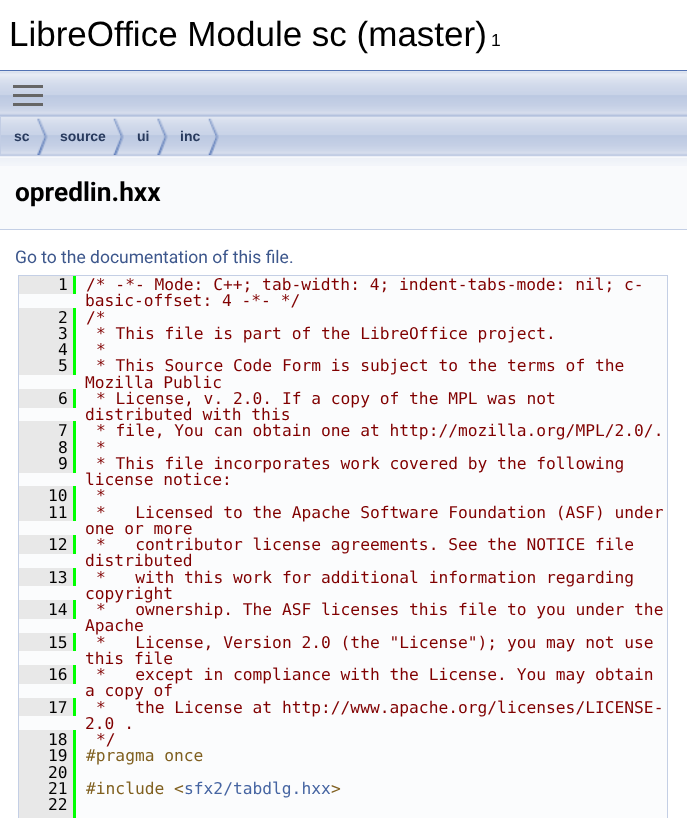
<svg xmlns="http://www.w3.org/2000/svg" width="687" height="818">
<rect width="100%" height="100%" fill="#fff"/>
<rect y="70" width="687" height="1" fill="#5373b4"/>
<text x="9" y="46" style="font-family:Liberation Sans;font-size:35px;fill:#000">LibreOffice Module sc (master)</text>
<text x="491" y="46" style="font-family:Liberation Sans;font-size:17.5px;fill:#000">1</text>
<image x="0" y="71" width="687" height="45" href="media/1.png"/>
<rect x="13" y="94" width="30" height="3" fill="#666"/>
<rect x="13" y="85" width="30" height="3" fill="#666"/>
<rect x="13" y="103" width="30" height="3" fill="#666"/>
<rect y="156" width="687" height="73" fill="#f9fafc"/>
<image x="0" y="156" width="687" height="10" href="media/6.png"/>
<image x="0" y="117" width="687" height="40" href="media/2.png"/>
<rect x="0.5" y="116.5" width="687" height="39" fill="none" stroke="#c2cde4"/>
<image x="37" y="118" width="11" height="37" href="media/3.png"/>
<text x="14" y="141" style="font-family:Liberation Sans;font-size:14px;font-weight:bold;fill:#283a5d">sc</text>
<image x="113" y="118" width="11" height="37" href="media/4.png"/>
<text x="60" y="141" style="font-family:Liberation Sans;font-size:14px;font-weight:bold;fill:#283a5d">source</text>
<image x="157" y="118" width="11" height="37" href="media/3.png"/>
<text x="137" y="141" style="font-family:Liberation Sans;font-size:14px;font-weight:bold;fill:#283a5d">ui</text>
<image x="208" y="118" width="11" height="37" href="media/5.png"/>
<text x="180" y="141" style="font-family:Liberation Sans;font-size:14px;font-weight:bold;fill:#283a5d">inc</text>
<rect y="229" width="687" height="1" fill="#c4cfe5"/>
<text x="15" y="201" style="font-family:Roboto;font-size:26.25px;font-weight:bold;fill:#000">opredlin.hxx</text>
<text x="15" y="263" style="font-family:Roboto;font-size:17.5px;fill:#3d578c">Go to the documentation of this file.</text>
<rect x="18.5" y="275.5" width="649" height="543" fill="#fbfcfd" stroke="#c4cfe5"/>
<rect x="19" y="276" width="54" height="18" fill="#e8e8e8"/>
<text x="58" y="290" style="font-family:DejaVu Sans Mono;font-size:16.25px;fill:#000">1</text>
<rect x="73" y="276" width="3" height="18" fill="#0f0"/>
<text x="86" y="290" style="font-family:DejaVu Sans Mono;font-size:16.25px;fill:#800000">/* -*- Mode: C++; tab-width: 4; indent-tabs-mode: nil; c-</text>
<text x="85" y="306" style="font-family:DejaVu Sans Mono;font-size:16.25px;fill:#800000">basic-offset: 4 -*- */</text>
<rect x="19" y="308" width="54" height="67" fill="#e8e8e8"/>
<text x="58" y="323" style="font-family:DejaVu Sans Mono;font-size:16.25px;fill:#000">2</text>
<rect x="73" y="308" width="3" height="67" fill="#0f0"/>
<text x="86" y="323" style="font-family:DejaVu Sans Mono;font-size:16.25px;fill:#800000">/*</text>
<text x="58" y="339" style="font-family:DejaVu Sans Mono;font-size:16.25px;fill:#000">3</text>
<text x="96" y="339" style="font-family:DejaVu Sans Mono;font-size:16.25px;fill:#800000">* This file is part of the LibreOffice project.</text>
<text x="58" y="355" style="font-family:DejaVu Sans Mono;font-size:16.25px;fill:#000">4</text>
<text x="96" y="355" style="font-family:DejaVu Sans Mono;font-size:16.25px;fill:#800000">*</text>
<text x="58" y="371" style="font-family:DejaVu Sans Mono;font-size:16.25px;fill:#000">5</text>
<text x="96" y="371" style="font-family:DejaVu Sans Mono;font-size:16.25px;fill:#800000">* This Source Code Form is subject to the terms of the</text>
<text x="85" y="388" style="font-family:DejaVu Sans Mono;font-size:16.25px;fill:#800000">Mozilla Public</text>
<rect x="19" y="389" width="54" height="19" fill="#e8e8e8"/>
<text x="58" y="404" style="font-family:DejaVu Sans Mono;font-size:16.25px;fill:#000">6</text>
<rect x="73" y="389" width="3" height="19" fill="#0f0"/>
<text x="96" y="404" style="font-family:DejaVu Sans Mono;font-size:16.25px;fill:#800000">* License, v. 2.0. If a copy of the MPL was not</text>
<text x="85" y="420" style="font-family:DejaVu Sans Mono;font-size:16.25px;fill:#800000">distributed with this</text>
<rect x="19" y="421" width="54" height="52" fill="#e8e8e8"/>
<text x="58" y="436" style="font-family:DejaVu Sans Mono;font-size:16.25px;fill:#000">7</text>
<rect x="73" y="421" width="3" height="52" fill="#0f0"/>
<text x="96" y="436" style="font-family:DejaVu Sans Mono;font-size:16.25px;fill:#800000">* file, You can obtain one at http://mozilla.org/MPL/2.0/.</text>
<text x="58" y="453" style="font-family:DejaVu Sans Mono;font-size:16.25px;fill:#000">8</text>
<text x="96" y="453" style="font-family:DejaVu Sans Mono;font-size:16.25px;fill:#800000">*</text>
<text x="58" y="469" style="font-family:DejaVu Sans Mono;font-size:16.25px;fill:#000">9</text>
<text x="96" y="469" style="font-family:DejaVu Sans Mono;font-size:16.25px;fill:#800000">* This file incorporates work covered by the following</text>
<text x="85" y="485" style="font-family:DejaVu Sans Mono;font-size:16.25px;fill:#800000">license notice:</text>
<rect x="19" y="486" width="54" height="35" fill="#e8e8e8"/>
<text x="48" y="501" style="font-family:DejaVu Sans Mono;font-size:16.25px;fill:#000">10</text>
<rect x="73" y="486" width="3" height="35" fill="#0f0"/>
<text x="96" y="501" style="font-family:DejaVu Sans Mono;font-size:16.25px;fill:#800000">*</text>
<text x="48" y="518" style="font-family:DejaVu Sans Mono;font-size:16.25px;fill:#000">11</text>
<text x="96" y="518" style="font-family:DejaVu Sans Mono;font-size:16.25px;fill:#800000" xml:space="preserve">*   Licensed to the Apache Software Foundation (ASF) under</text>
<text x="85" y="534" style="font-family:DejaVu Sans Mono;font-size:16.25px;fill:#800000">one or more</text>
<rect x="19" y="535" width="54" height="19" fill="#e8e8e8"/>
<text x="48" y="550" style="font-family:DejaVu Sans Mono;font-size:16.25px;fill:#000">12</text>
<rect x="73" y="535" width="3" height="19" fill="#0f0"/>
<text x="96" y="550" style="font-family:DejaVu Sans Mono;font-size:16.25px;fill:#800000" xml:space="preserve">*   contributor license agreements. See the NOTICE file</text>
<text x="85" y="566" style="font-family:DejaVu Sans Mono;font-size:16.25px;fill:#800000">distributed</text>
<rect x="19" y="568" width="54" height="18" fill="#e8e8e8"/>
<text x="48" y="583" style="font-family:DejaVu Sans Mono;font-size:16.25px;fill:#000">13</text>
<rect x="73" y="568" width="3" height="18" fill="#0f0"/>
<text x="96" y="583" style="font-family:DejaVu Sans Mono;font-size:16.25px;fill:#800000" xml:space="preserve">*   with this work for additional information regarding</text>
<text x="85" y="599" style="font-family:DejaVu Sans Mono;font-size:16.25px;fill:#800000">copyright</text>
<rect x="19" y="600" width="54" height="19" fill="#e8e8e8"/>
<text x="48" y="615" style="font-family:DejaVu Sans Mono;font-size:16.25px;fill:#000">14</text>
<rect x="73" y="600" width="3" height="19" fill="#0f0"/>
<text x="96" y="615" style="font-family:DejaVu Sans Mono;font-size:16.25px;fill:#800000" xml:space="preserve">*   ownership. The ASF licenses this file to you under the</text>
<text x="85" y="631" style="font-family:DejaVu Sans Mono;font-size:16.25px;fill:#800000">Apache</text>
<rect x="19" y="633" width="54" height="18" fill="#e8e8e8"/>
<text x="48" y="648" style="font-family:DejaVu Sans Mono;font-size:16.25px;fill:#000">15</text>
<rect x="73" y="633" width="3" height="18" fill="#0f0"/>
<text x="96" y="648" style="font-family:DejaVu Sans Mono;font-size:16.25px;fill:#800000" xml:space="preserve">*   License, Version 2.0 (the "License"); you may not use</text>
<text x="85" y="664" style="font-family:DejaVu Sans Mono;font-size:16.25px;fill:#800000">this file</text>
<rect x="19" y="665" width="54" height="19" fill="#e8e8e8"/>
<text x="48" y="680" style="font-family:DejaVu Sans Mono;font-size:16.25px;fill:#000">16</text>
<rect x="73" y="665" width="3" height="19" fill="#0f0"/>
<text x="96" y="680" style="font-family:DejaVu Sans Mono;font-size:16.25px;fill:#800000" xml:space="preserve">*   except in compliance with the License. You may obtain</text>
<text x="85" y="696" style="font-family:DejaVu Sans Mono;font-size:16.25px;fill:#800000">a copy of</text>
<rect x="19" y="698" width="54" height="18" fill="#e8e8e8"/>
<text x="48" y="713" style="font-family:DejaVu Sans Mono;font-size:16.25px;fill:#000">17</text>
<rect x="73" y="698" width="3" height="18" fill="#0f0"/>
<text x="96" y="713" style="font-family:DejaVu Sans Mono;font-size:16.25px;fill:#800000" xml:space="preserve">*   the License at http://www.apache.org/licenses/LICENSE-</text>
<text x="85" y="729" style="font-family:DejaVu Sans Mono;font-size:16.25px;fill:#800000">2.0 .</text>
<rect x="19" y="730" width="54" height="81" fill="#e8e8e8"/>
<text x="48" y="745" style="font-family:DejaVu Sans Mono;font-size:16.25px;fill:#000">18</text>
<rect x="73" y="730" width="3" height="84" fill="#0f0"/>
<text x="96" y="745" style="font-family:DejaVu Sans Mono;font-size:16.25px;fill:#800000">*/</text>
<text x="48" y="761" style="font-family:DejaVu Sans Mono;font-size:16.25px;fill:#000">19</text>
<text x="86" y="761" style="font-family:DejaVu Sans Mono;font-size:16.25px;fill:#806020">#pragma once</text>
<text x="48" y="778" style="font-family:DejaVu Sans Mono;font-size:16.25px;fill:#000">20</text>
<text x="48" y="794" style="font-family:DejaVu Sans Mono;font-size:16.25px;fill:#000">21</text>
<text x="86" y="794" style="font-family:DejaVu Sans Mono;font-size:16.25px;fill:#806020">#include &lt;</text>
<text x="184" y="794" style="font-family:DejaVu Sans Mono;font-size:16.25px;fill:#4665a2">sfx2/tabdlg.hxx</text>
<text x="331" y="794" style="font-family:DejaVu Sans Mono;font-size:16.25px;fill:#806020">&gt;</text>
<text x="48" y="810" style="font-family:DejaVu Sans Mono;font-size:16.25px;fill:#000">22</text>
<rect x="19" y="811" width="56" height="7" fill="#e8e8e8"/>
<rect x="73" y="811" width="3" height="7" fill="#0f0"/>
</svg>
